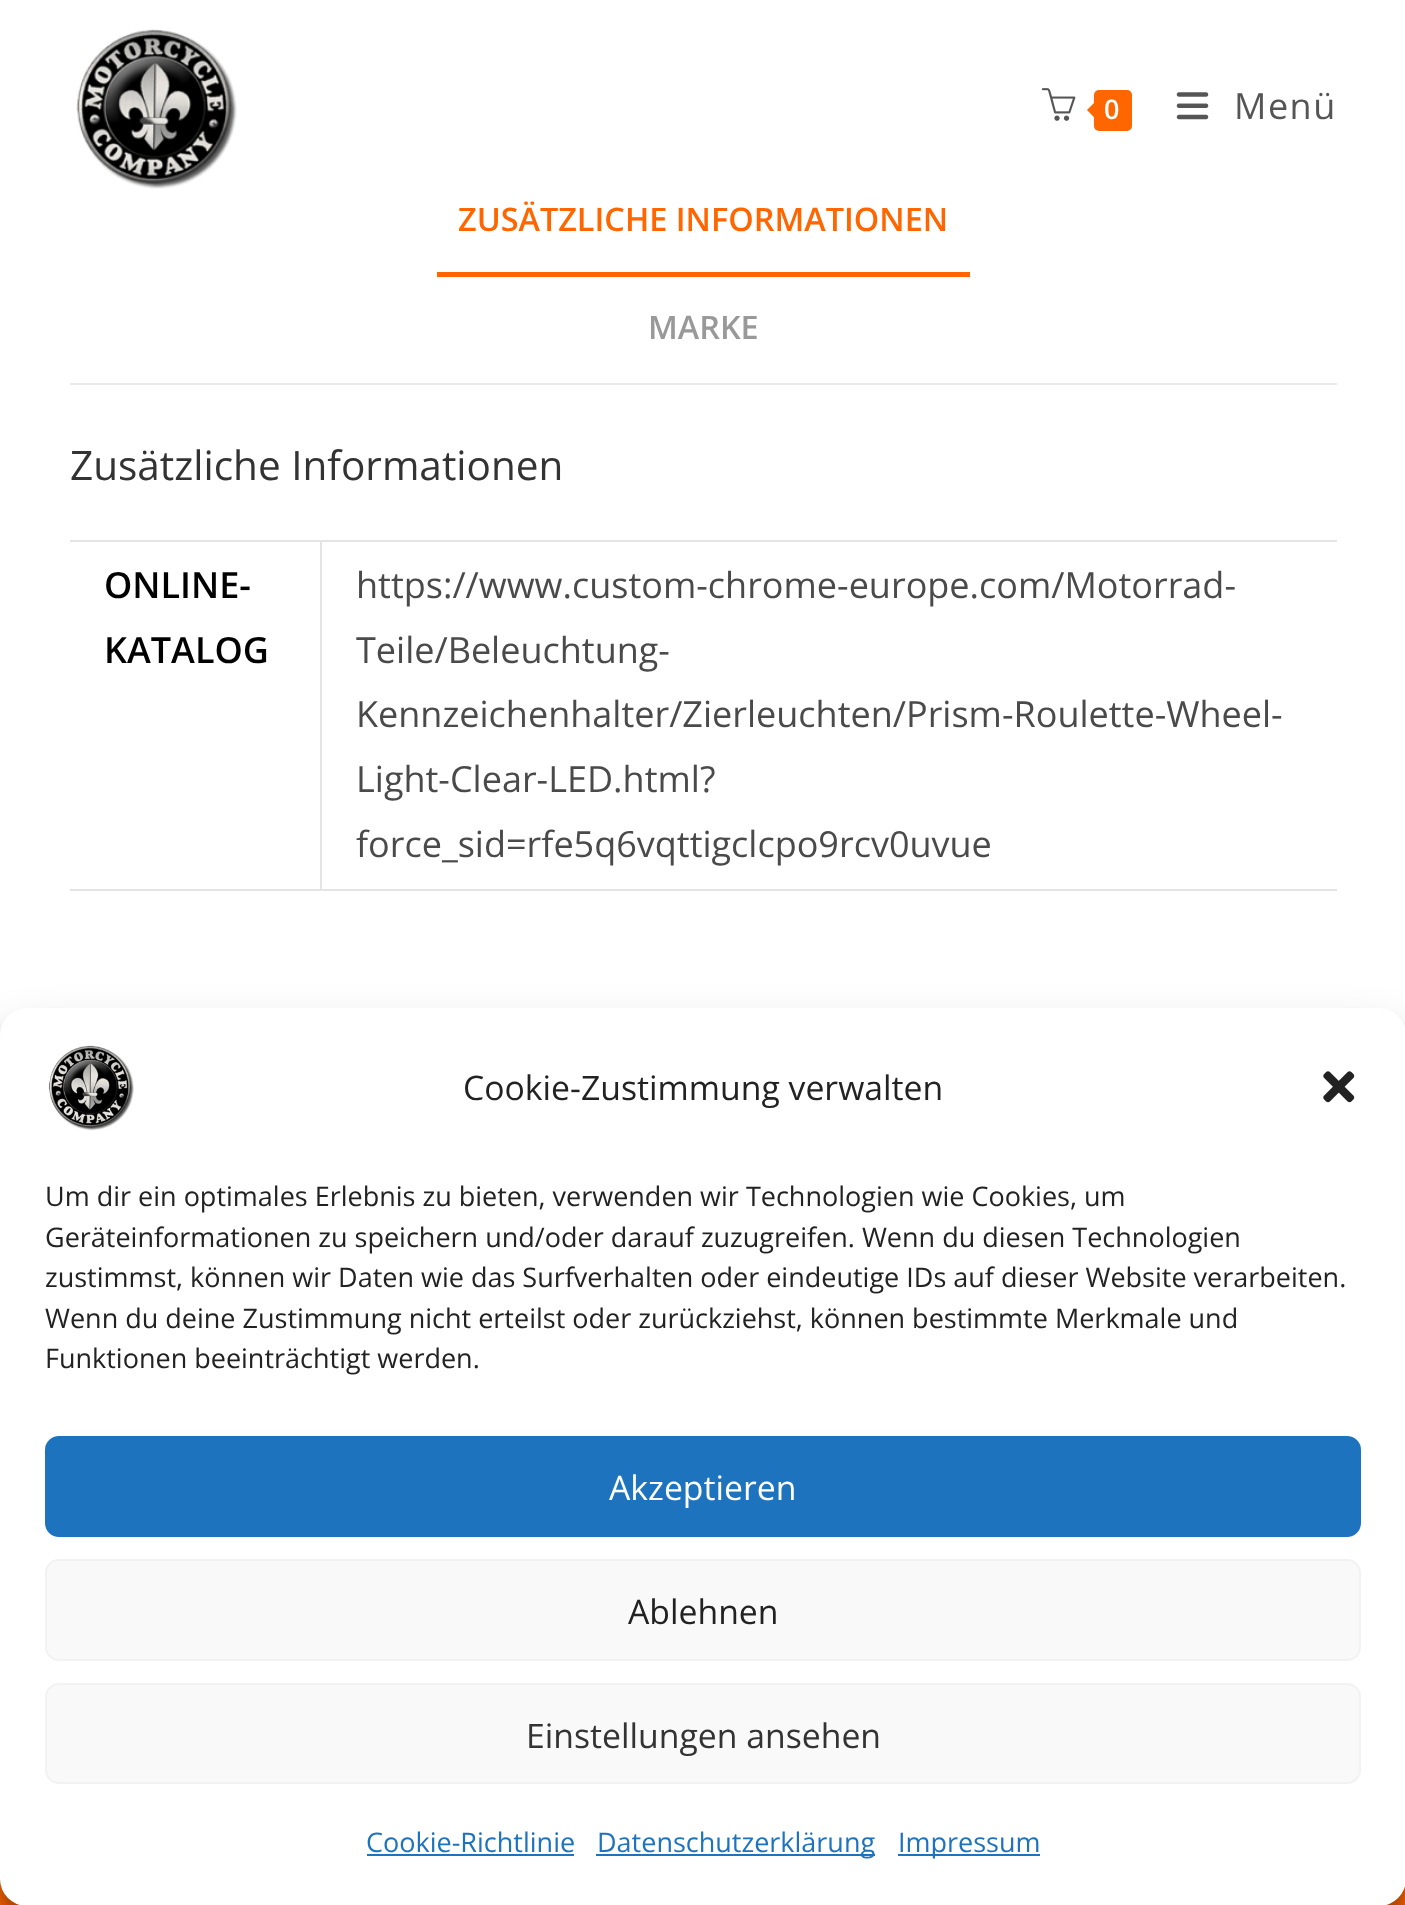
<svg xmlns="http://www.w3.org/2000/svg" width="1405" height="1905">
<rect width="100%" height="100%" fill="#fff"/>
<image x="76" y="29" width="161" height="160" href="media/1.png"/>
<image x="1041" y="88" width="35" height="33" href="media/2.png"/>
<rect x="1094" y="90" width="38" height="41" rx="5" fill="#f60"/>
<path d="M1098 99v22.5l-11-11.5z" fill="#f60"/>
<text x="1104" y="119" style="font-family:Open Sans;font-size:27px;font-weight:600;letter-spacing:1.5px;fill:#fff">0</text>
<image x="1176" y="92" width="33" height="28" href="media/3.png"/>
<text x="1234" y="119" style="font-family:Open Sans;font-size:36px;letter-spacing:1.5px;fill:#555">Menü</text>
<rect x="70" y="383" width="1267" height="2" fill="#eaeaea"/>
<rect x="437" y="272" width="533" height="5" fill="#f60"/>
<text x="458" y="231" style="font-family:Open Sans;font-size:32.4px;font-weight:600;fill:#f60">ZUSÄTZLICHE INFORMATIONEN</text>
<text x="648" y="339" style="font-family:Open Sans;font-size:32.4px;font-weight:600;fill:#999">MARKE</text>
<text x="70" y="480" style="font-family:Open Sans;font-size:40.5px;fill:#333">Zusätzliche Informationen</text>
<rect x="70" y="540" width="1267" height="2" fill="#e4e4e4"/>
<rect x="320" y="889" width="1017" height="2" fill="#e4e4e4"/>
<rect x="320" y="540" width="2" height="351" fill="#e4e4e4"/>
<rect x="70" y="889" width="252" height="2" fill="#e4e4e4"/>
<text x="104" y="598" style="font-family:Open Sans;font-size:36px;font-weight:600;fill:#000">ONLINE-</text>
<text x="104" y="663" style="font-family:Open Sans;font-size:36px;font-weight:600;fill:#000">KATALOG</text>
<text x="356" y="598" style="font-family:Open Sans;font-size:36px;fill:#4a4a4a">https://www.custom-chrome-europe.com/Motorrad-</text>
<text x="356" y="663" style="font-family:Open Sans;font-size:36px;fill:#4a4a4a">Teile/Beleuchtung-</text>
<text x="356" y="727" style="font-family:Open Sans;font-size:36px;fill:#4a4a4a">Kennzeichenhalter/Zierleuchten/Prism-Roulette-Wheel-</text>
<text x="356" y="792" style="font-family:Open Sans;font-size:36px;fill:#4a4a4a">Light-Clear-LED.html?</text>
<text x="356" y="857" style="font-family:Open Sans;font-size:36px;fill:#4a4a4a">force_sid=rfe5q6vqttigclcpo9rcv0uvue</text>
<rect y="1879" width="1405" height="26" fill="#f60"/>
<rect y="1022" width="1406" height="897" rx="27" fill="#0000003b" filter="blur(7px)"/>
<rect y="1031" width="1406" height="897" rx="27" fill="#00000030" filter="blur(22.5px)"/>
<rect y="1008" width="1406" height="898" rx="27" fill="#fff"/>
<image x="48" y="1045" width="86" height="86" href="media/4.png"/>
<text x="463" y="1100" style="font-family:Open Sans;font-size:33.75px;fill:#222">Cookie-Zustimmung verwalten</text>
<image x="1323" y="1071" width="32" height="32" href="media/5.png"/>
<text x="45" y="1206" style="font-family:Open Sans;font-size:27px;fill:#222">Um dir ein optimales Erlebnis zu bieten, verwenden wir Technologien wie Cookies, um</text>
<text x="45" y="1247" style="font-family:Open Sans;font-size:27px;fill:#222">Geräteinformationen zu speichern und/oder darauf zuzugreifen. Wenn du diesen Technologien</text>
<text x="45" y="1287" style="font-family:Open Sans;font-size:27px;fill:#222">zustimmst, können wir Daten wie das Surfverhalten oder eindeutige IDs auf dieser Website verarbeiten.</text>
<text x="45" y="1328" style="font-family:Open Sans;font-size:27px;fill:#222">Wenn du deine Zustimmung nicht erteilst oder zurückziehst, können bestimmte Merkmale und</text>
<text x="45" y="1368" style="font-family:Open Sans;font-size:27px;fill:#222">Funktionen beeinträchtigt werden.</text>
<rect x="46" y="1437" width="1314" height="99" rx="13" fill="#1e73be" stroke="#1e73be" stroke-width="2"/>
<text x="609" y="1500" style="font-family:Open Sans;font-size:33.75px;fill:#fff">Akzeptieren</text>
<rect x="46" y="1560" width="1314" height="100" rx="13" fill="#f9f9f9" stroke="#f2f2f2" stroke-width="2"/>
<text x="628" y="1624" style="font-family:Open Sans;font-size:33.75px;fill:#222">Ablehnen</text>
<rect x="46" y="1684" width="1314" height="99" rx="13" fill="#f9f9f9" stroke="#f2f2f2" stroke-width="2"/>
<text x="526" y="1748" style="font-family:Open Sans;font-size:33.75px;fill:#333">Einstellungen ansehen</text>
<text x="366" y="1852" style="font-family:Open Sans;font-size:27px;fill:#1e73be">Cookie-Richtlinie</text>
<rect x="367" y="1854" width="207" height="2" fill="#1e73be"/>
<rect x="596" y="1854" width="279" height="2" fill="#1e73be"/>
<text x="597" y="1852" style="font-family:Open Sans;font-size:27px;fill:#1e73be">Datenschutzerklärung</text>
<rect x="898" y="1854" width="142" height="2" fill="#1e73be"/>
<text x="898" y="1852" style="font-family:Open Sans;font-size:27px;fill:#1e73be">Impressum</text>
</svg>
